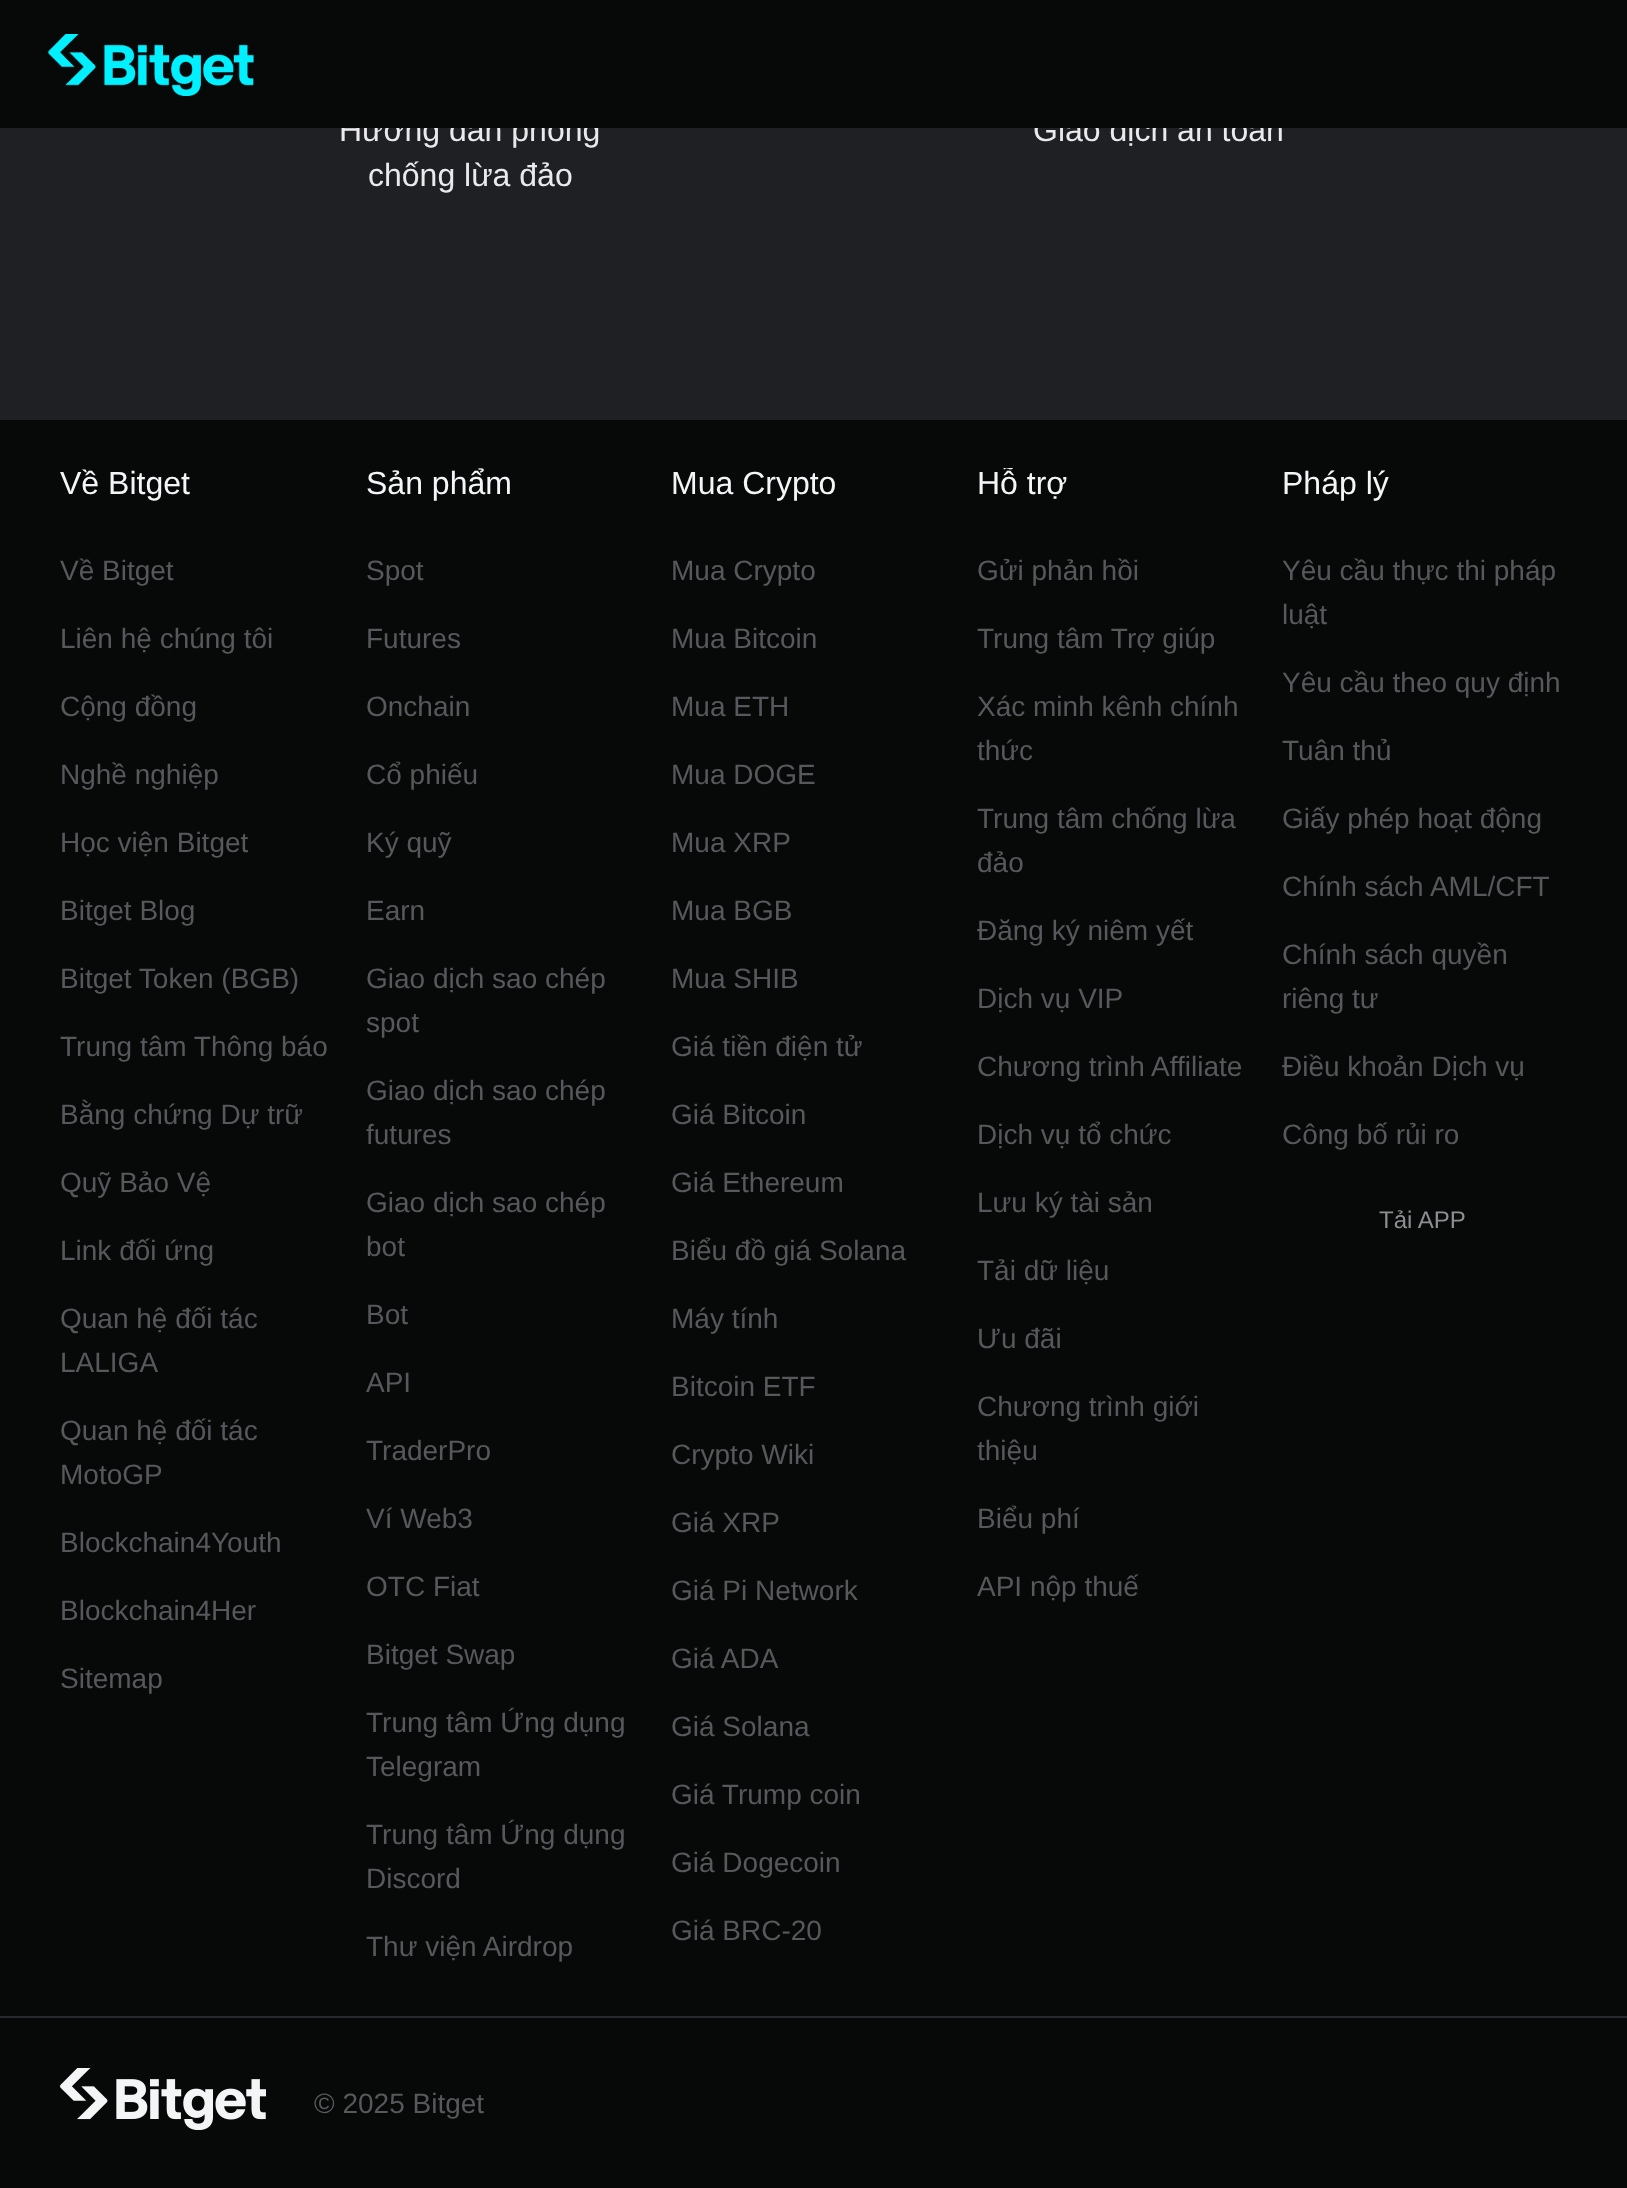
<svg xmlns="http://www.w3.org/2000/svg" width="1627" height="2188">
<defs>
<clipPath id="clip1"><rect x="976" y="468" width="286" height="1140"/></clipPath>
</defs>
<rect width="100%" height="100%" fill="#070808"/>
<image x="48" y="34" width="206" height="62" href="media/1.png"/>
<rect y="128" width="1627" height="292" fill="#1f2023"/>
<text x="339" y="141" style="font-family:Liberation Sans;font-size:32px;fill:#eaeaed">Hướng dẫn phòng</text>
<text x="1033" y="141" style="font-family:Liberation Sans;font-size:32px;fill:#eaeaed">Giao dịch an toàn</text>
<rect x="341" y="113" width="941" height="15" fill="#070808"/>
<text x="368" y="186" style="font-family:Liberation Sans;font-size:32px;fill:#eaeaed">chống lừa đảo</text>
<text x="60" y="494" style="font-family:Liberation Sans;font-size:32px;fill:#f4f5f7">Về Bitget</text>
<text x="60" y="580" style="font-family:Liberation Sans;font-size:28px;fill:#57585c">Về Bitget</text>
<text x="60" y="648" style="font-family:Liberation Sans;font-size:28px;fill:#57585c">Liên hệ chúng tôi</text>
<text x="60" y="716" style="font-family:Liberation Sans;font-size:28px;fill:#57585c">Cộng đồng</text>
<text x="60" y="784" style="font-family:Liberation Sans;font-size:28px;fill:#57585c">Nghề nghiệp</text>
<text x="60" y="852" style="font-family:Liberation Sans;font-size:28px;fill:#57585c">Học viện Bitget</text>
<text x="60" y="920" style="font-family:Liberation Sans;font-size:28px;fill:#57585c">Bitget Blog</text>
<text x="60" y="988" style="font-family:Liberation Sans;font-size:28px;fill:#57585c">Bitget Token (BGB)</text>
<text x="60" y="1056" style="font-family:Liberation Sans;font-size:28px;fill:#57585c">Trung tâm Thông báo</text>
<text x="60" y="1124" style="font-family:Liberation Sans;font-size:28px;fill:#57585c">Bằng chứng Dự trữ</text>
<text x="60" y="1192" style="font-family:Liberation Sans;font-size:28px;fill:#57585c">Quỹ Bảo Vệ</text>
<text x="60" y="1260" style="font-family:Liberation Sans;font-size:28px;fill:#57585c">Link đối ứng</text>
<text x="60" y="1328" style="font-family:Liberation Sans;font-size:28px;fill:#57585c">Quan hệ đối tác</text>
<text x="60" y="1372" style="font-family:Liberation Sans;font-size:28px;fill:#57585c">LALIGA</text>
<text x="60" y="1440" style="font-family:Liberation Sans;font-size:28px;fill:#57585c">Quan hệ đối tác</text>
<text x="60" y="1484" style="font-family:Liberation Sans;font-size:28px;fill:#57585c">MotoGP</text>
<text x="60" y="1552" style="font-family:Liberation Sans;font-size:28px;fill:#57585c">Blockchain4Youth</text>
<text x="60" y="1620" style="font-family:Liberation Sans;font-size:28px;fill:#57585c">Blockchain4Her</text>
<text x="60" y="1688" style="font-family:Liberation Sans;font-size:28px;fill:#57585c">Sitemap</text>
<text x="366" y="494" style="font-family:Liberation Sans;font-size:32px;fill:#f4f5f7">Sản phẩm</text>
<text x="366" y="580" style="font-family:Liberation Sans;font-size:28px;fill:#57585c">Spot</text>
<text x="366" y="648" style="font-family:Liberation Sans;font-size:28px;fill:#57585c">Futures</text>
<text x="366" y="716" style="font-family:Liberation Sans;font-size:28px;fill:#57585c">Onchain</text>
<text x="366" y="784" style="font-family:Liberation Sans;font-size:28px;fill:#57585c">Cổ phiếu</text>
<text x="366" y="852" style="font-family:Liberation Sans;font-size:28px;fill:#57585c">Ký quỹ</text>
<text x="366" y="920" style="font-family:Liberation Sans;font-size:28px;fill:#57585c">‌Earn</text>
<text x="366" y="988" style="font-family:Liberation Sans;font-size:28px;fill:#57585c">Giao dịch sao chép</text>
<text x="366" y="1032" style="font-family:Liberation Sans;font-size:28px;fill:#57585c">spot</text>
<text x="366" y="1100" style="font-family:Liberation Sans;font-size:28px;fill:#57585c">Giao dịch sao chép</text>
<text x="366" y="1144" style="font-family:Liberation Sans;font-size:28px;fill:#57585c">futures</text>
<text x="366" y="1212" style="font-family:Liberation Sans;font-size:28px;fill:#57585c">Giao dịch sao chép</text>
<text x="366" y="1256" style="font-family:Liberation Sans;font-size:28px;fill:#57585c">bot</text>
<text x="366" y="1324" style="font-family:Liberation Sans;font-size:28px;fill:#57585c">Bot</text>
<text x="366" y="1392" style="font-family:Liberation Sans;font-size:28px;fill:#57585c">API</text>
<text x="366" y="1460" style="font-family:Liberation Sans;font-size:28px;fill:#57585c">TraderPro</text>
<text x="366" y="1528" style="font-family:Liberation Sans;font-size:28px;fill:#57585c">Ví Web3</text>
<text x="366" y="1596" style="font-family:Liberation Sans;font-size:28px;fill:#57585c">OTC Fiat</text>
<text x="366" y="1664" style="font-family:Liberation Sans;font-size:28px;fill:#57585c">Bitget Swap</text>
<text x="366" y="1732" style="font-family:Liberation Sans;font-size:28px;fill:#57585c">Trung tâm Ứng dụng</text>
<text x="366" y="1776" style="font-family:Liberation Sans;font-size:28px;fill:#57585c">Telegram</text>
<text x="366" y="1844" style="font-family:Liberation Sans;font-size:28px;fill:#57585c">Trung tâm Ứng dụng</text>
<text x="366" y="1888" style="font-family:Liberation Sans;font-size:28px;fill:#57585c">Discord</text>
<text x="366" y="1956" style="font-family:Liberation Sans;font-size:28px;fill:#57585c">Thư viện Airdrop</text>
<text x="671" y="494" style="font-family:Liberation Sans;font-size:32px;fill:#f4f5f7">Mua Crypto</text>
<text x="671" y="580" style="font-family:Liberation Sans;font-size:28px;fill:#57585c">Mua Crypto</text>
<text x="671" y="648" style="font-family:Liberation Sans;font-size:28px;fill:#57585c">Mua Bitcoin</text>
<text x="671" y="716" style="font-family:Liberation Sans;font-size:28px;fill:#57585c">Mua ETH</text>
<text x="671" y="784" style="font-family:Liberation Sans;font-size:28px;fill:#57585c">Mua DOGE</text>
<text x="671" y="852" style="font-family:Liberation Sans;font-size:28px;fill:#57585c">Mua XRP</text>
<text x="671" y="920" style="font-family:Liberation Sans;font-size:28px;fill:#57585c">Mua BGB</text>
<text x="671" y="988" style="font-family:Liberation Sans;font-size:28px;fill:#57585c">Mua SHIB</text>
<text x="671" y="1056" style="font-family:Liberation Sans;font-size:28px;fill:#57585c">Giá tiền điện tử</text>
<text x="671" y="1124" style="font-family:Liberation Sans;font-size:28px;fill:#57585c">Giá Bitcoin</text>
<text x="671" y="1192" style="font-family:Liberation Sans;font-size:28px;fill:#57585c">Giá Ethereum</text>
<text x="671" y="1260" style="font-family:Liberation Sans;font-size:28px;fill:#57585c">Biểu đồ giá Solana</text>
<text x="671" y="1328" style="font-family:Liberation Sans;font-size:28px;fill:#57585c">Máy tính</text>
<text x="671" y="1396" style="font-family:Liberation Sans;font-size:28px;fill:#57585c">Bitcoin ETF</text>
<text x="671" y="1464" style="font-family:Liberation Sans;font-size:28px;fill:#57585c">Crypto Wiki</text>
<text x="671" y="1532" style="font-family:Liberation Sans;font-size:28px;fill:#57585c">Giá XRP</text>
<text x="671" y="1600" style="font-family:Liberation Sans;font-size:28px;fill:#57585c">Giá Pi Network</text>
<text x="671" y="1668" style="font-family:Liberation Sans;font-size:28px;fill:#57585c">Giá ADA</text>
<text x="671" y="1736" style="font-family:Liberation Sans;font-size:28px;fill:#57585c">Giá Solana</text>
<text x="671" y="1804" style="font-family:Liberation Sans;font-size:28px;fill:#57585c">Giá Trump coin</text>
<text x="671" y="1872" style="font-family:Liberation Sans;font-size:28px;fill:#57585c">Giá Dogecoin</text>
<text x="671" y="1940" style="font-family:Liberation Sans;font-size:28px;fill:#57585c">Giá BRC-20</text>
<g clip-path="url(#clip1)">
<text x="977" y="494" style="font-family:Liberation Sans;font-size:32px;fill:#f4f5f7">Hỗ trợ</text>
</g>
<text x="977" y="580" style="font-family:Liberation Sans;font-size:28px;fill:#57585c">Gửi phản hồi</text>
<text x="977" y="648" style="font-family:Liberation Sans;font-size:28px;fill:#57585c">Trung tâm Trợ giúp</text>
<text x="977" y="716" style="font-family:Liberation Sans;font-size:28px;fill:#57585c">Xác minh kênh chính</text>
<text x="977" y="760" style="font-family:Liberation Sans;font-size:28px;fill:#57585c">thức</text>
<text x="977" y="828" style="font-family:Liberation Sans;font-size:28px;fill:#57585c">Trung tâm chống lừa</text>
<text x="977" y="872" style="font-family:Liberation Sans;font-size:28px;fill:#57585c">đảo</text>
<text x="977" y="940" style="font-family:Liberation Sans;font-size:28px;fill:#57585c">Đăng ký niêm yết</text>
<text x="977" y="1008" style="font-family:Liberation Sans;font-size:28px;fill:#57585c">Dịch vụ VIP</text>
<text x="977" y="1076" style="font-family:Liberation Sans;font-size:28px;fill:#57585c">Chương trình Affiliate</text>
<text x="977" y="1144" style="font-family:Liberation Sans;font-size:28px;fill:#57585c">Dịch vụ tổ chức</text>
<text x="977" y="1212" style="font-family:Liberation Sans;font-size:28px;fill:#57585c">Lưu ký tài sản</text>
<text x="977" y="1280" style="font-family:Liberation Sans;font-size:28px;fill:#57585c">Tải dữ liệu</text>
<text x="977" y="1348" style="font-family:Liberation Sans;font-size:28px;fill:#57585c">Ưu đãi</text>
<text x="977" y="1416" style="font-family:Liberation Sans;font-size:28px;fill:#57585c">Chương trình giới</text>
<text x="977" y="1460" style="font-family:Liberation Sans;font-size:28px;fill:#57585c">thiệu</text>
<text x="977" y="1528" style="font-family:Liberation Sans;font-size:28px;fill:#57585c">Biểu phí</text>
<text x="977" y="1596" style="font-family:Liberation Sans;font-size:28px;fill:#57585c">API nộp thuế</text>
<text x="1282" y="494" style="font-family:Liberation Sans;font-size:32px;fill:#f4f5f7">Pháp lý</text>
<text x="1282" y="580" style="font-family:Liberation Sans;font-size:28px;fill:#57585c">Yêu cầu thực thi pháp</text>
<text x="1282" y="624" style="font-family:Liberation Sans;font-size:28px;fill:#57585c">luật</text>
<text x="1282" y="692" style="font-family:Liberation Sans;font-size:28px;fill:#57585c">Yêu cầu theo quy định</text>
<text x="1282" y="760" style="font-family:Liberation Sans;font-size:28px;fill:#57585c">Tuân thủ</text>
<text x="1282" y="828" style="font-family:Liberation Sans;font-size:28px;fill:#57585c">Giấy phép hoạt động</text>
<text x="1282" y="896" style="font-family:Liberation Sans;font-size:28px;fill:#57585c">Chính sách AML/CFT</text>
<text x="1282" y="964" style="font-family:Liberation Sans;font-size:28px;fill:#57585c">Chính sách quyền</text>
<text x="1282" y="1008" style="font-family:Liberation Sans;font-size:28px;fill:#57585c">riêng tư</text>
<text x="1282" y="1076" style="font-family:Liberation Sans;font-size:28px;fill:#57585c">Điều khoản Dịch vụ</text>
<text x="1282" y="1144" style="font-family:Liberation Sans;font-size:28px;fill:#57585c">Công bố rủi ro</text>
<text x="1379" y="1228" style="font-family:Liberation Sans;font-size:24px;fill:#8e8e92">Tải APP</text>
<rect y="2016" width="1627" height="2" fill="#27282b"/>
<image x="60" y="2068" width="206" height="62" href="media/2.png"/>
<text x="314" y="2113" style="font-family:Liberation Sans;font-size:28px;fill:#57585c">© 2025 Bitget</text>
</svg>
